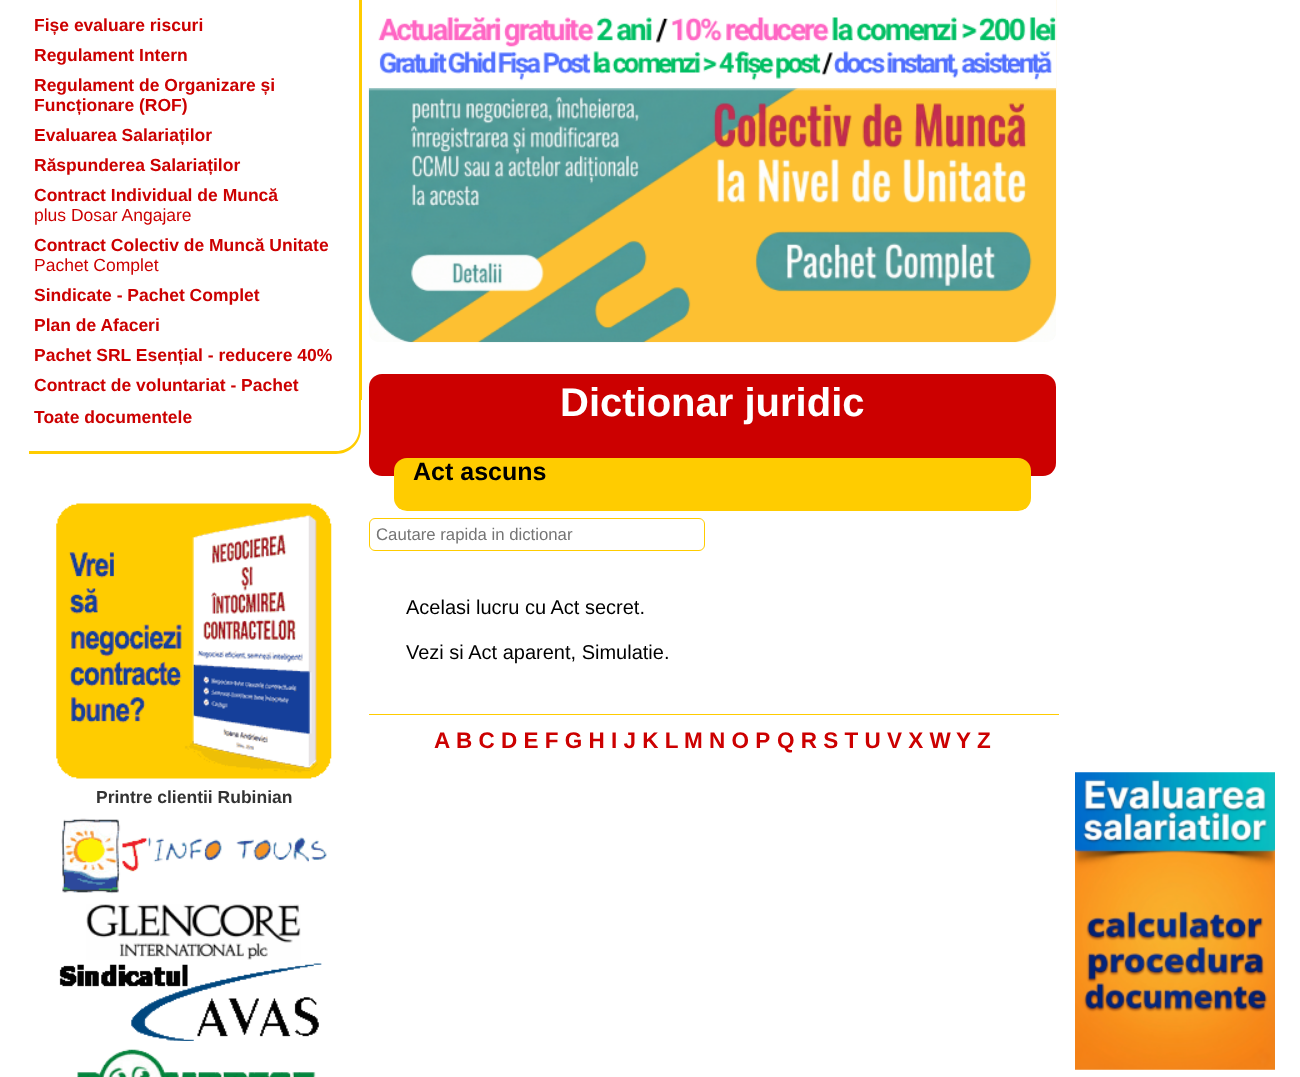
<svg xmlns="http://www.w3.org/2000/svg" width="1300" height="1077">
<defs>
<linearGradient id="g1" gradientUnits="userSpaceOnUse" x1="709" y1="0" x2="709" y2="91"><stop offset="0.01" stop-color="#fff"/><stop offset="0.94" stop-color="#feffff"/><stop offset="1" stop-color="#feffff" stop-opacity="0"/></linearGradient>
</defs>
<rect width="100%" height="100%" fill="#fff"/>
<text x="34" y="31" style="font-family:Liberation Sans;font-size:17.5px;font-weight:bold;fill:#c00">Fișe evaluare riscuri</text>
<rect x="359" width="3" height="400" fill="#fc0"/>
<text x="34" y="61" style="font-family:Liberation Sans;font-size:17.5px;font-weight:bold;fill:#c00">Regulament Intern</text>
<text x="34" y="91" style="font-family:Liberation Sans;font-size:17.5px;font-weight:bold;fill:#c00">Regulament de Organizare și</text>
<text x="34" y="111" style="font-family:Liberation Sans;font-size:17.5px;font-weight:bold;fill:#c00">Funcționare (ROF)</text>
<text x="34" y="141" style="font-family:Liberation Sans;font-size:17.5px;font-weight:bold;fill:#c00">Evaluarea Salariaților</text>
<text x="34" y="171" style="font-family:Liberation Sans;font-size:17.5px;font-weight:bold;fill:#c00">Răspunderea Salariaților</text>
<text x="34" y="201" style="font-family:Liberation Sans;font-size:17.5px;font-weight:bold;fill:#c00">Contract Individual de Muncă</text>
<text x="34" y="221" style="font-family:Liberation Sans;font-size:17.5px;fill:#c00">plus Dosar Angajare</text>
<text x="34" y="251" style="font-family:Liberation Sans;font-size:17.5px;font-weight:bold;fill:#c00">Contract Colectiv de Muncă Unitate</text>
<text x="34" y="271" style="font-family:Liberation Sans;font-size:17.5px;fill:#c00">Pachet Complet</text>
<text x="34" y="301" style="font-family:Liberation Sans;font-size:17.5px;font-weight:bold;fill:#c00">Sindicate - Pachet Complet</text>
<text x="34" y="331" style="font-family:Liberation Sans;font-size:17.5px;font-weight:bold;fill:#c00">Plan de Afaceri</text>
<text x="34" y="361" style="font-family:Liberation Sans;font-size:17.5px;font-weight:bold;fill:#c00">Pachet SRL Esențial - reducere 40%</text>
<text x="34" y="391" style="font-family:Liberation Sans;font-size:17.5px;font-weight:bold;fill:#c00">Contract de voluntariat - Pachet</text>
<path d="M36 400h325v29c0 14-11 25-25 25h-307v-46c0-5 3-8 7-8zm0 0h323v29c0 12-10 22-23 22h-307v-43c0-5 3-8 7-8z" fill="#fc0" fill-rule="evenodd"/>
<text x="34" y="423" style="font-family:Liberation Sans;font-size:17.5px;font-weight:bold;fill:#c00">Toate documentele</text>
<image x="56" y="503" width="276" height="276" href="media/1.png"/>
<text x="96" y="803" style="font-family:Liberation Sans;font-size:17.5px;font-weight:bold;fill:#333">Printre clientii Rubinian</text>
<image x="61" y="818" width="266" height="76" href="media/2.png"/>
<image x="86" y="904" width="215" height="56" href="media/3.png"/>
<image x="59" y="963" width="263" height="78" href="media/4.png"/>
<image x="77" y="1049" width="239" height="28" href="media/5.png"/>
<image x="368" y="0" width="689" height="343" href="media/7.png"/>
<rect x="368" width="688" height="91" fill="url(#g1)"/>
<image x="369" y="17" width="687" height="71" href="media/6.png"/>
<rect x="369" y="374" width="687" height="102" rx="13" fill="#c00"/>
<text x="560" y="416" style="font-family:Liberation Sans;font-size:40px;font-weight:bold;fill:#fff">Dictionar juridic</text>
<rect x="394" y="458" width="637" height="53" rx="13" fill="#fc0"/>
<text x="413" y="480" style="font-family:Liberation Sans;font-size:25px;font-weight:bold;fill:#000">Act ascuns</text>
<rect x="369.5" y="518.5" width="335" height="32" rx="5.5" fill="none" stroke="#fc0"/>
<text x="376" y="540" style="font-family:Liberation Sans;font-size:16.75px;fill:#757575">Cautare rapida in dictionar</text>
<text x="406" y="614" style="font-family:Liberation Sans;font-size:20px;fill:#000">Acelasi lucru cu Act secret.</text>
<text x="406" y="659" style="font-family:Liberation Sans;font-size:20px;fill:#000">Vezi si Act aparent, Simulatie.</text>
<rect x="369" y="714" width="690" height="1" fill="#fc0"/>
<text x="434" y="748" style="font-family:Liberation Sans;font-size:22.5px;font-weight:bold;fill:#c00">A</text>
<text x="456" y="748" style="font-family:Liberation Sans;font-size:22.5px;font-weight:bold;fill:#c00">B C D E F G H I J K L</text>
<text x="684" y="748" style="font-family:Liberation Sans;font-size:22.5px;font-weight:bold;fill:#c00">M N O P</text>
<text x="777" y="748" style="font-family:Liberation Sans;font-size:22.5px;font-weight:bold;fill:#c00">Q R S T U V X W</text>
<text x="956" y="748" style="font-family:Liberation Sans;font-size:22.5px;font-weight:bold;fill:#c00">Y</text>
<text x="977" y="748" style="font-family:Liberation Sans;font-size:22.5px;font-weight:bold;fill:#c00">Z</text>
<image x="1075" y="772" width="200" height="298" href="media/8.png"/>
</svg>
